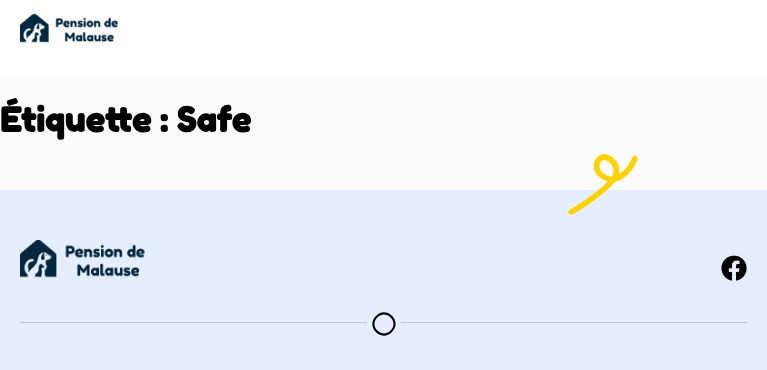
<svg xmlns="http://www.w3.org/2000/svg" width="767" height="370">
<rect width="100%" height="100%" fill="#fbfbfb"/>
<rect width="767" height="76" fill="#fff"/>
<image x="20" y="13" width="98" height="30" href="media/1.png"/>
<text x="0" y="132" style="font-family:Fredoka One;font-size:34px;font-weight:bold;fill:#000">Étiquette : Safe</text>
<rect y="190" width="767" height="180" fill="#e5eeff"/>
<image x="568" y="154" width="70" height="61" href="media/2.png"/>
<image x="20" y="240" width="125" height="38" href="media/3.png"/>
<image x="721" y="255" width="26" height="26" href="media/4.png"/>
<rect x="20" y="322" width="727" height="1" fill="#bec6d4"/>
<circle cx="384" cy="324" r="17" fill="#e5eeff"/>
<path d="M376 316c10.5-11 27 5.5 16 16c-10.5 11-27-5.5-16-16zm1.5 14.5c8.5 9 22-4.5 13-13c-8.5-9-22 4.5-13 13z" fill="#000"/>
</svg>
